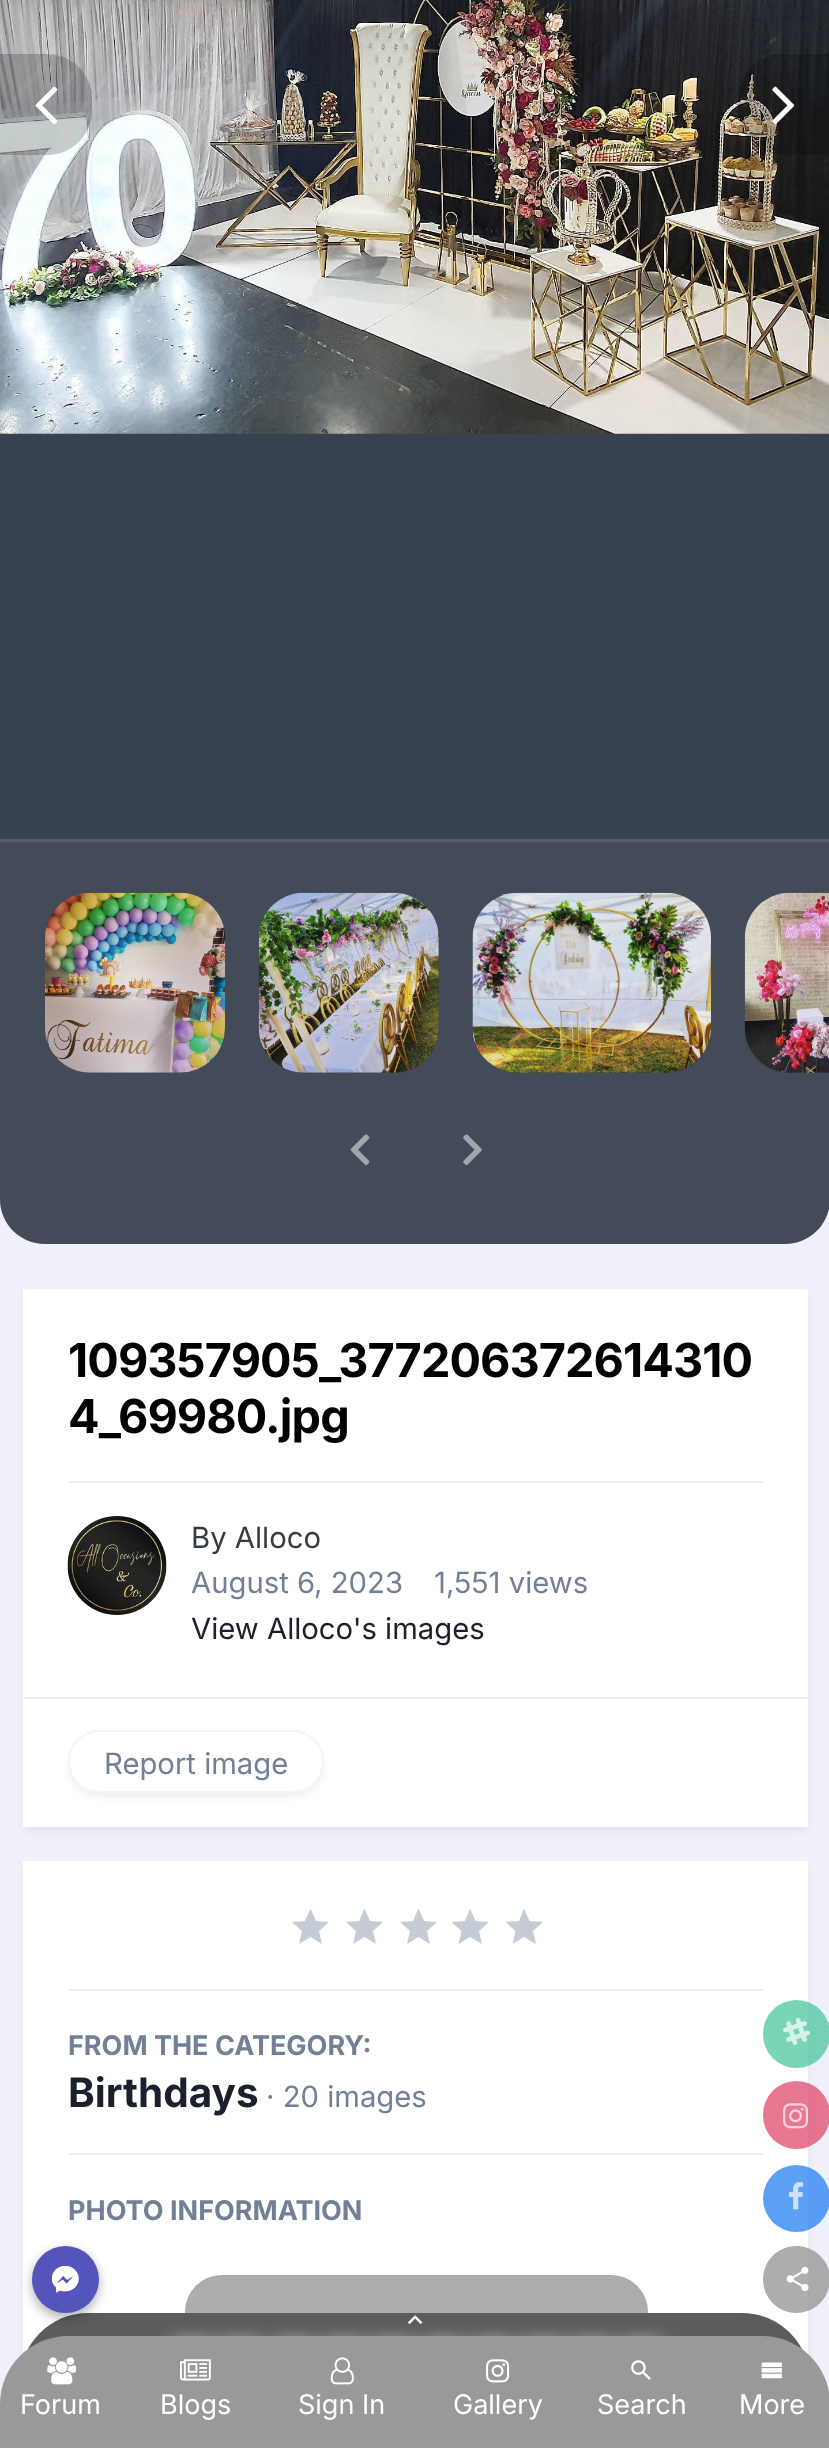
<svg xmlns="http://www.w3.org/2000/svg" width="829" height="2448">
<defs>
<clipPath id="clip1"><rect x="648" y="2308" width="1" height="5"/></clipPath>
<clipPath id="clip2"><path d="M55 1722h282v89h-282zm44.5 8h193c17.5 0 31.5 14 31.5 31.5c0 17.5-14 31.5-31.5 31.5h-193c-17.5 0-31.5-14-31.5-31.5c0-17.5 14-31.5 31.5-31.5z" clip-rule="evenodd"/></clipPath>
</defs>
<rect width="100%" height="100%" fill="#f0f0fb"/>
<rect x="25" y="1868" width="781" height="528" fill="#2d37481a" filter="blur(4.5px)"/>
<rect x="23" y="1861" width="785" height="493" fill="#fff"/>
<g clip-path="url(#clip1)">
<rect x="187" y="2282" width="459" height="69" rx="34.5" fill="#2d37481a" filter="blur(4.5px)"/>
</g>
<rect x="185" y="2275" width="463" height="74" rx="37" fill="#999999cc"/>
<rect x="186" y="2276" width="461" height="72" rx="36" fill="none" stroke="#9999991a" stroke-width="2"/>
<path d="M88 2313h654c37.5 0 68 30.5 68 68v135h-790v-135c0-37.5 30.5-68 68-68z" fill="#5c5c5c"/>
<rect x="32" y="2250" width="67" height="68" rx="33.5" fill="#0000004d" filter="blur(5.5px)"/>
<circle cx="65.5" cy="2279.5" r="33.5" fill="#5454ba"/>
<image x="52" y="2266" width="27" height="27" href="media/1.png"/>
<rect y="433" width="829" height="406" fill="#374150"/>
<image x="0" y="0" width="829" height="434" href="media/2.png"/>
<path d="M0 54h47c25 0 45 20 45 45v11c0 25-20 45-45 45h-47z" fill="#00000033"/>
<image x="35" y="86" width="23" height="39" href="media/3.png"/>
<path d="M783 54h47v101h-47c-25 0-45-20-45-45v-11c0-25 20-45 45-45z" fill="#00000033"/>
<image x="772" y="86" width="23" height="39" href="media/4.png"/>
<path d="M0 839h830v360c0 25-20 45-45 45h-740c-25 0-45-20-45-45z" fill="#2d3748"/>
<path d="M0 839h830v360c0 25-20 45-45 45h-740c-25 0-45-20-45-45z" fill="#99999933"/>
<rect y="839" width="829" height="3" fill="#555d69"/>
<rect x="45" y="893" width="180" height="180" rx="45" fill="#2d3748"/>
<rect x="45" y="893" width="180" height="180" rx="45" fill="#9999991a"/>
<image x="45" y="892" width="180" height="181" href="media/5.png"/>
<rect x="259" y="893" width="180" height="180" rx="45" fill="#2d3748"/>
<rect x="259" y="893" width="180" height="180" rx="45" fill="#9999991a"/>
<image x="258" y="892" width="181" height="181" href="media/6.png"/>
<rect x="473" y="893" width="238" height="180" rx="45" fill="#2d3748"/>
<rect x="473" y="893" width="238" height="180" rx="45" fill="#9999991a"/>
<image x="472" y="892" width="239" height="181" href="media/7.png"/>
<path d="M790 893h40v180h-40c-25 0-45-20-45-45v-90c0-25 20-45 45-45z" fill="#2d3748"/>
<path d="M790 893h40v180h-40c-25 0-45-20-45-45v-90c0-25 20-45 45-45z" fill="#9999991a"/>
<image x="744" y="892" width="85" height="181" href="media/8.png"/>
<image x="350" y="1134" width="20" height="31" href="media/9.png"/>
<image x="463" y="1134" width="19" height="32" href="media/10.png"/>
<rect x="25" y="1296" width="781" height="533" fill="#2d37481a" filter="blur(4.5px)"/>
<rect x="23" y="1289" width="785" height="538" fill="#fff"/>
<text x="68" y="1377" style="font-family:Inter;font-size:46.75px;font-weight:bold;letter-spacing:-0.9px;fill:#000">109357905_377206372614310</text>
<text x="68" y="1433" style="font-family:Inter;font-size:46.75px;font-weight:bold;letter-spacing:-0.9px;fill:#000">4_69980.jpg</text>
<rect x="68" y="1481" width="695" height="2" fill="#efeff0"/>
<image x="67" y="1516" width="100" height="99" href="media/11.png"/>
<text x="191" y="1548" style="font-family:Inter;font-size:29.25px;fill:#353c41">By Alloco</text>
<text x="191" y="1593" style="font-family:Inter;font-size:29.25px;fill:#718096">August 6, 2023</text>
<text x="434" y="1593" style="font-family:Inter;font-size:29.25px;fill:#718096">1,551 views</text>
<text x="191" y="1639" style="font-family:Inter;font-size:29.25px;fill:#1a202c">View Alloco's images</text>
<rect x="23" y="1697" width="785" height="2" fill="#ebecec"/>
<g clip-path="url(#clip2)">
<rect x="70" y="1737" width="252" height="59" rx="29.5" fill="#2d37481a" filter="blur(4.5px)"/>
</g>
<rect x="69" y="1731" width="254" height="61" rx="30.5" fill="none" stroke="#f5f5f5" stroke-width="2"/>
<text x="104" y="1774" style="font-family:Inter;font-size:29.25px;fill:#718096">Report image</text>
<path d="M310.5 1937l11.5 7l-3-13l10-9l-13-1l-5.5-12.5l-5.5 12.5l-13 1l10 9l-3 13z" fill="#c6ccd5"/>
<path d="M364.5 1937l11.5 7l-3-13l10-9l-13-1l-5.5-12.5l-5.5 12.5l-13 1l10 9l-3 13z" fill="#c6ccd5"/>
<path d="M418.5 1937l11.5 7l-3-13l10-9l-13-1l-5.5-12.5l-5.5 12.5l-13 1l10 9l-3 13z" fill="#c6ccd5"/>
<path d="M470 1937l12 7l-3-13l10-9l-13.5-1l-5.5-12.5l-5 12.5l-13.5 1l10 9l-3 13z" fill="#c6ccd5"/>
<path d="M524 1937l12 7l-3-13l10-9l-13.5-1l-5.5-12.5l-5 12.5l-13.5 1l10 9l-3 13z" fill="#c6ccd5"/>
<rect x="68" y="1989" width="695" height="2" fill="#efeff0"/>
<text x="68" y="2055" style="font-family:Inter;font-size:27px;font-weight:bold;fill:#718096">FROM THE CATEGORY:</text>
<text x="68" y="2107" style="font-family:Inter;font-size:40.5px;font-weight:bold;fill:#1a202c">Birthdays</text>
<text x="266" y="2107" style="font-family:Inter;font-size:29.25px;fill:#718096">· 20 images</text>
<rect x="68" y="2153" width="695" height="2" fill="#efeff0"/>
<text x="68" y="2220" style="font-family:Inter;font-size:27px;font-weight:bold;fill:#718096">PHOTO INFORMATION</text>
<rect x="763" y="2000" width="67" height="68" rx="33.5" fill="#42c299b3"/>
<image x="783" y="2018" width="28" height="27" href="media/12.png"/>
<rect x="763" y="2081" width="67" height="68" rx="33.5" fill="#e13d62b3"/>
<image x="783" y="2103" width="26" height="26" href="media/13.png"/>
<circle cx="796.5" cy="2198.5" r="33.5" fill="#1778f2b3"/>
<image x="789" y="2182" width="15" height="28" href="media/14.png"/>
<path d="M796 2313c19 0 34-15 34-34c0-18-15-33-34-33c-18 0-33 15-33 33c0 19 15 34 33 34z" fill="#999999cc"/>
<image x="786" y="2267" width="23" height="25" href="media/15.png"/>
<rect x="169" y="2345" width="45" height="45" rx="11" fill="#fff" filter="blur(11px)"/>
<rect x="218" y="2345" width="45" height="45" rx="11" fill="#fff" filter="blur(11px)"/>
<rect x="272" y="2345" width="45" height="45" rx="11" fill="#fff" filter="blur(11px)"/>
<rect x="322" y="2345" width="45" height="45" rx="11" fill="#fff" filter="blur(11px)"/>
<image x="407" y="2315" width="16" height="10" href="media/16.png"/>
<rect x="371" y="2345" width="45" height="45" rx="11" fill="#fff" filter="blur(11px)"/>
<rect x="421" y="2345" width="45" height="45" rx="11" fill="#fff" filter="blur(11px)"/>
<rect x="470" y="2345" width="45" height="45" rx="11" fill="#fff" filter="blur(11px)"/>
<rect x="520" y="2345" width="45" height="45" rx="11" fill="#fff" filter="blur(11px)"/>
<rect x="569" y="2345" width="45" height="45" rx="11" fill="#fff" filter="blur(11px)"/>
<rect x="619" y="2345" width="45" height="45" rx="11" fill="#fff" filter="blur(11px)"/>
<path d="M68 2336h694c37.5 0 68 30.5 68 68v44h-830v-44c0-37.5 30.5-68 68-68z" fill="#999"/>
<image x="47" y="2357" width="30" height="28" href="media/17.png"/>
<text x="20" y="2414" style="font-family:Inter;font-size:27px;fill:#fff">Forum</text>
<image x="180" y="2359" width="31" height="22" href="media/18.png"/>
<text x="160" y="2414" style="font-family:Inter;font-size:27px;fill:#fff">Blogs</text>
<image x="330" y="2357" width="24" height="28" href="media/19.png"/>
<text x="298" y="2414" style="font-family:Inter;font-size:27px;fill:#fff">Sign In</text>
<image x="486" y="2359" width="24" height="24" href="media/20.png"/>
<text x="453" y="2414" style="font-family:Inter;font-size:27px;fill:#fff">Gallery</text>
<image x="631" y="2360" width="20" height="20" href="media/21.png"/>
<text x="597" y="2414" style="font-family:Inter;font-size:27px;fill:#fff">Search</text>
<image x="761" y="2362" width="21" height="17" href="media/22.png"/>
<text x="739" y="2414" style="font-family:Inter;font-size:27px;fill:#fff">More</text>
</svg>
